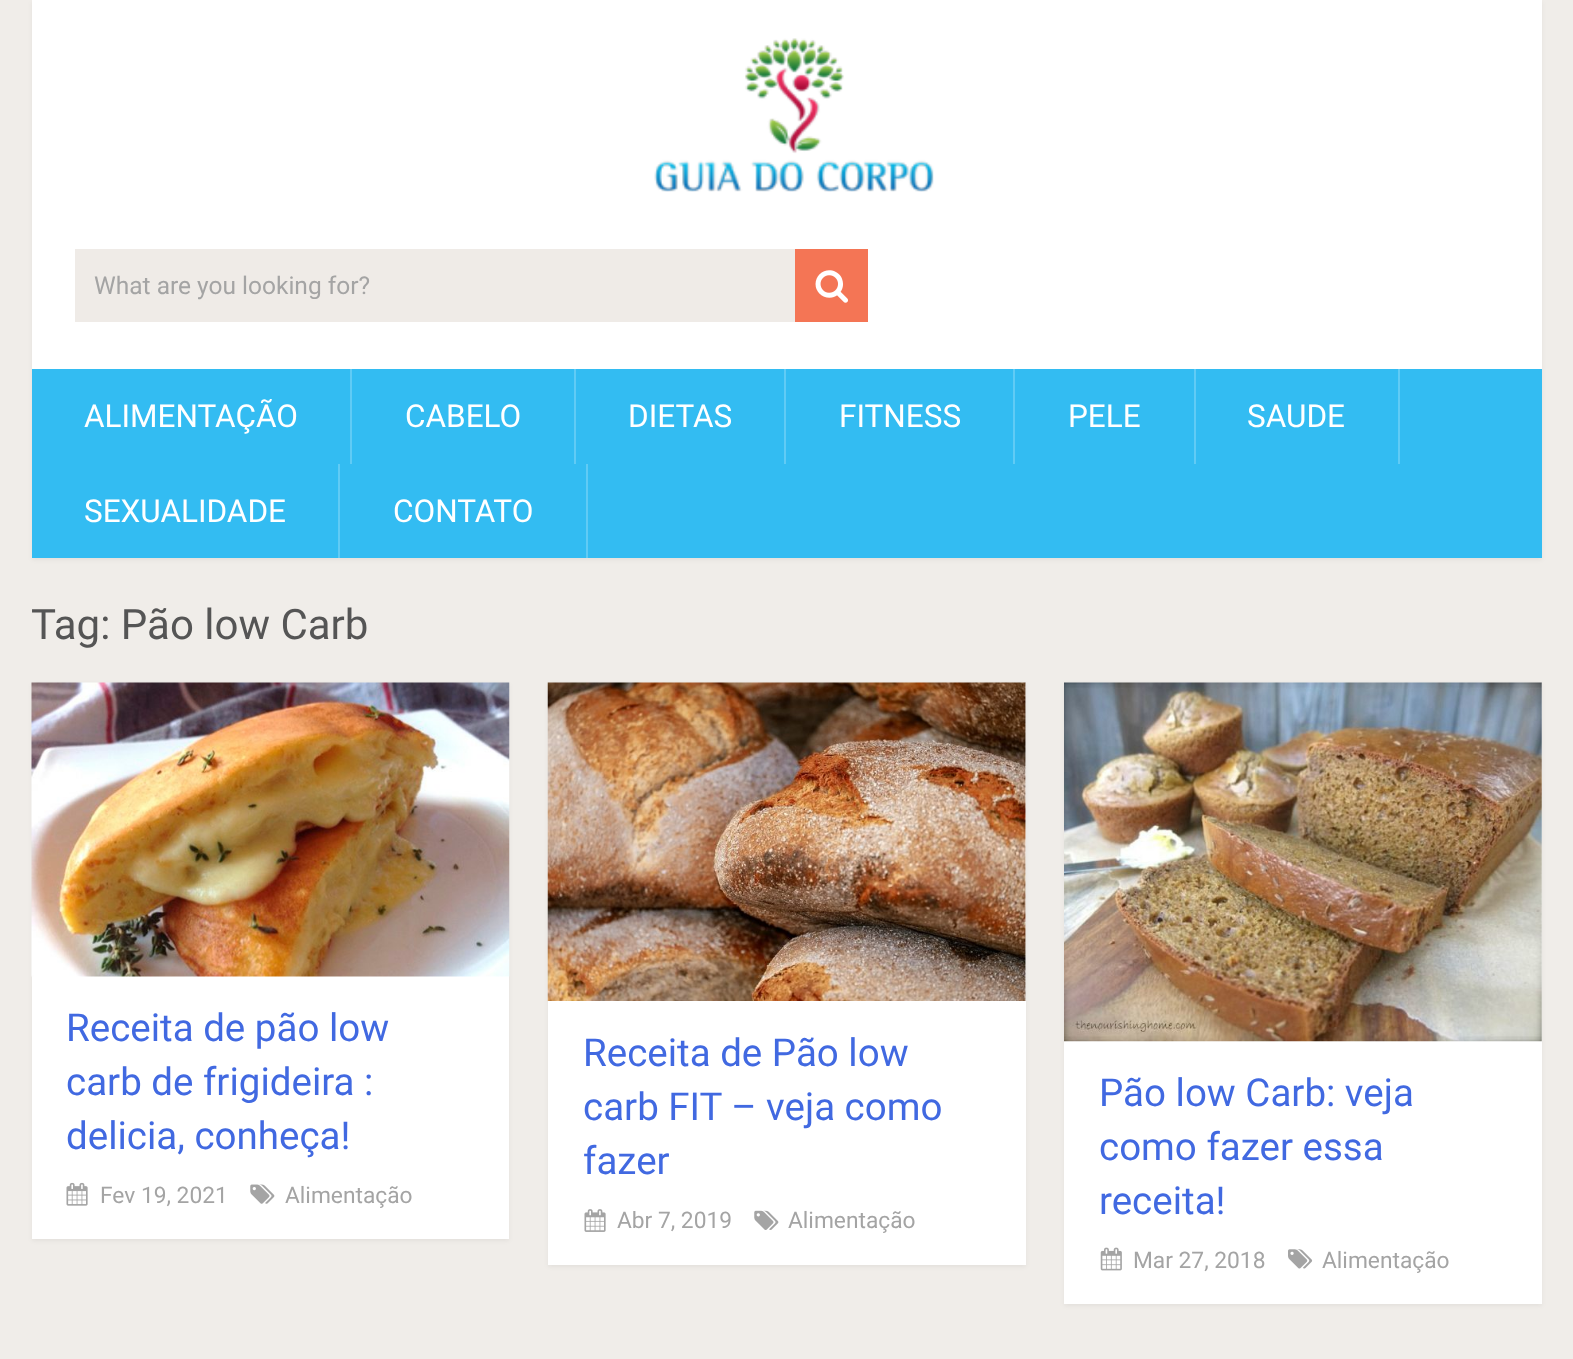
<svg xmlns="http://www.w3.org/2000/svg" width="1573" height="1359">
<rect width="100%" height="100%" fill="#f0ede9"/>
<rect x="32" y="2" width="1510" height="558" fill="#0000000d" filter="blur(2px)"/>
<rect x="32" width="1510" height="369" fill="#fff"/>
<image x="654" y="38" width="280" height="154" href="media/1.png"/>
<rect x="75" y="249" width="720" height="73" fill="#efebe7"/>
<text x="94" y="294" style="font-family:Roboto;font-size:24.5px;fill:#a4a4a4">What are you looking for?</text>
<rect x="795" y="249" width="73" height="73" fill="#f47555"/>
<image x="815" y="270" width="33" height="33" href="media/2.png"/>
<rect x="32" y="369" width="1510" height="189" fill="#33bcf2"/>
<rect x="350" y="369" width="2" height="95" fill="#60cbf5"/>
<text x="84" y="427" style="font-family:Roboto;font-size:31.5px;fill:#fff">ALIMENTAÇÃO</text>
<rect x="574" y="369" width="2" height="95" fill="#60cbf5"/>
<text x="405" y="427" style="font-family:Roboto;font-size:31.5px;fill:#fff">CABELO</text>
<rect x="784" y="369" width="2" height="95" fill="#60cbf5"/>
<text x="628" y="427" style="font-family:Roboto;font-size:31.5px;fill:#fff">DIETAS</text>
<rect x="1013" y="369" width="2" height="95" fill="#60cbf5"/>
<text x="839" y="427" style="font-family:Roboto;font-size:31.5px;fill:#fff">FITNESS</text>
<rect x="1194" y="369" width="2" height="95" fill="#60cbf5"/>
<text x="1068" y="427" style="font-family:Roboto;font-size:31.5px;fill:#fff">PELE</text>
<rect x="1398" y="369" width="2" height="95" fill="#60cbf5"/>
<text x="1247" y="427" style="font-family:Roboto;font-size:31.5px;fill:#fff">SAUDE</text>
<rect x="338" y="464" width="2" height="94" fill="#60cbf5"/>
<text x="84" y="522" style="font-family:Roboto;font-size:31.5px;fill:#fff">SEXUALIDADE</text>
<rect x="586" y="464" width="2" height="94" fill="#60cbf5"/>
<text x="393" y="522" style="font-family:Roboto;font-size:31.5px;fill:#fff">CONTATO</text>
<text x="31" y="639" style="font-family:Roboto;font-size:42px;fill:#555">Tag: Pão low Carb</text>
<rect x="32" y="684" width="477" height="557" fill="#0000000d" filter="blur(2px)"/>
<rect x="32" y="976" width="477" height="263" fill="#fff"/>
<image x="31" y="682" width="479" height="295" href="media/3.png"/>
<text x="66" y="1041" style="font-family:Roboto;font-size:38.5px;fill:#4169e1">Receita de pão low</text>
<text x="66" y="1095" style="font-family:Roboto;font-size:38.5px;fill:#4169e1">carb de frigideira :</text>
<text x="66" y="1149" style="font-family:Roboto;font-size:38.5px;fill:#4169e1">delicia, conheça!</text>
<image x="66" y="1182" width="22" height="24" href="media/4.png"/>
<text x="100" y="1203" style="font-family:Roboto;font-size:22.75px;fill:#a4a4a4">Fev 19, 2021</text>
<image x="250" y="1184" width="25" height="20" href="media/5.png"/>
<text x="285" y="1203" style="font-family:Roboto;font-size:22.75px;fill:#a4a4a4">Alimentação</text>
<rect x="548" y="684" width="478" height="583" fill="#0000000d" filter="blur(2px)"/>
<rect x="548" y="683" width="478" height="582" fill="#fff"/>
<image x="547" y="682" width="479" height="319" href="media/6.png"/>
<text x="583" y="1066" style="font-family:Roboto;font-size:38.5px;fill:#4169e1">Receita de Pão low</text>
<text x="583" y="1120" style="font-family:Roboto;font-size:38.5px;fill:#4169e1">carb FIT – veja como</text>
<text x="583" y="1174" style="font-family:Roboto;font-size:38.5px;fill:#4169e1">fazer</text>
<image x="584" y="1209" width="22" height="23" href="media/7.png"/>
<text x="617" y="1228" style="font-family:Roboto;font-size:22.75px;fill:#a4a4a4">Abr 7, 2019</text>
<image x="754" y="1210" width="25" height="20" href="media/8.png"/>
<text x="788" y="1228" style="font-family:Roboto;font-size:22.75px;fill:#a4a4a4">Alimentação</text>
<rect x="1064" y="684" width="478" height="622" fill="#0000000d" filter="blur(2px)"/>
<rect x="1064" y="683" width="478" height="621" fill="#fff"/>
<image x="1064" y="682" width="478" height="360" href="media/9.png"/>
<text x="1099" y="1106" style="font-family:Roboto;font-size:38.5px;fill:#4169e1">Pão low Carb: veja</text>
<text x="1099" y="1160" style="font-family:Roboto;font-size:38.5px;fill:#4169e1">como fazer essa</text>
<text x="1099" y="1214" style="font-family:Roboto;font-size:38.5px;fill:#4169e1">receita!</text>
<image x="1100" y="1247" width="22" height="24" href="media/10.png"/>
<text x="1133" y="1268" style="font-family:Roboto;font-size:22.75px;fill:#a4a4a4">Mar 27, 2018</text>
<image x="1288" y="1249" width="25" height="20" href="media/11.png"/>
<text x="1322" y="1268" style="font-family:Roboto;font-size:22.75px;fill:#a4a4a4">Alimentação</text>
</svg>
